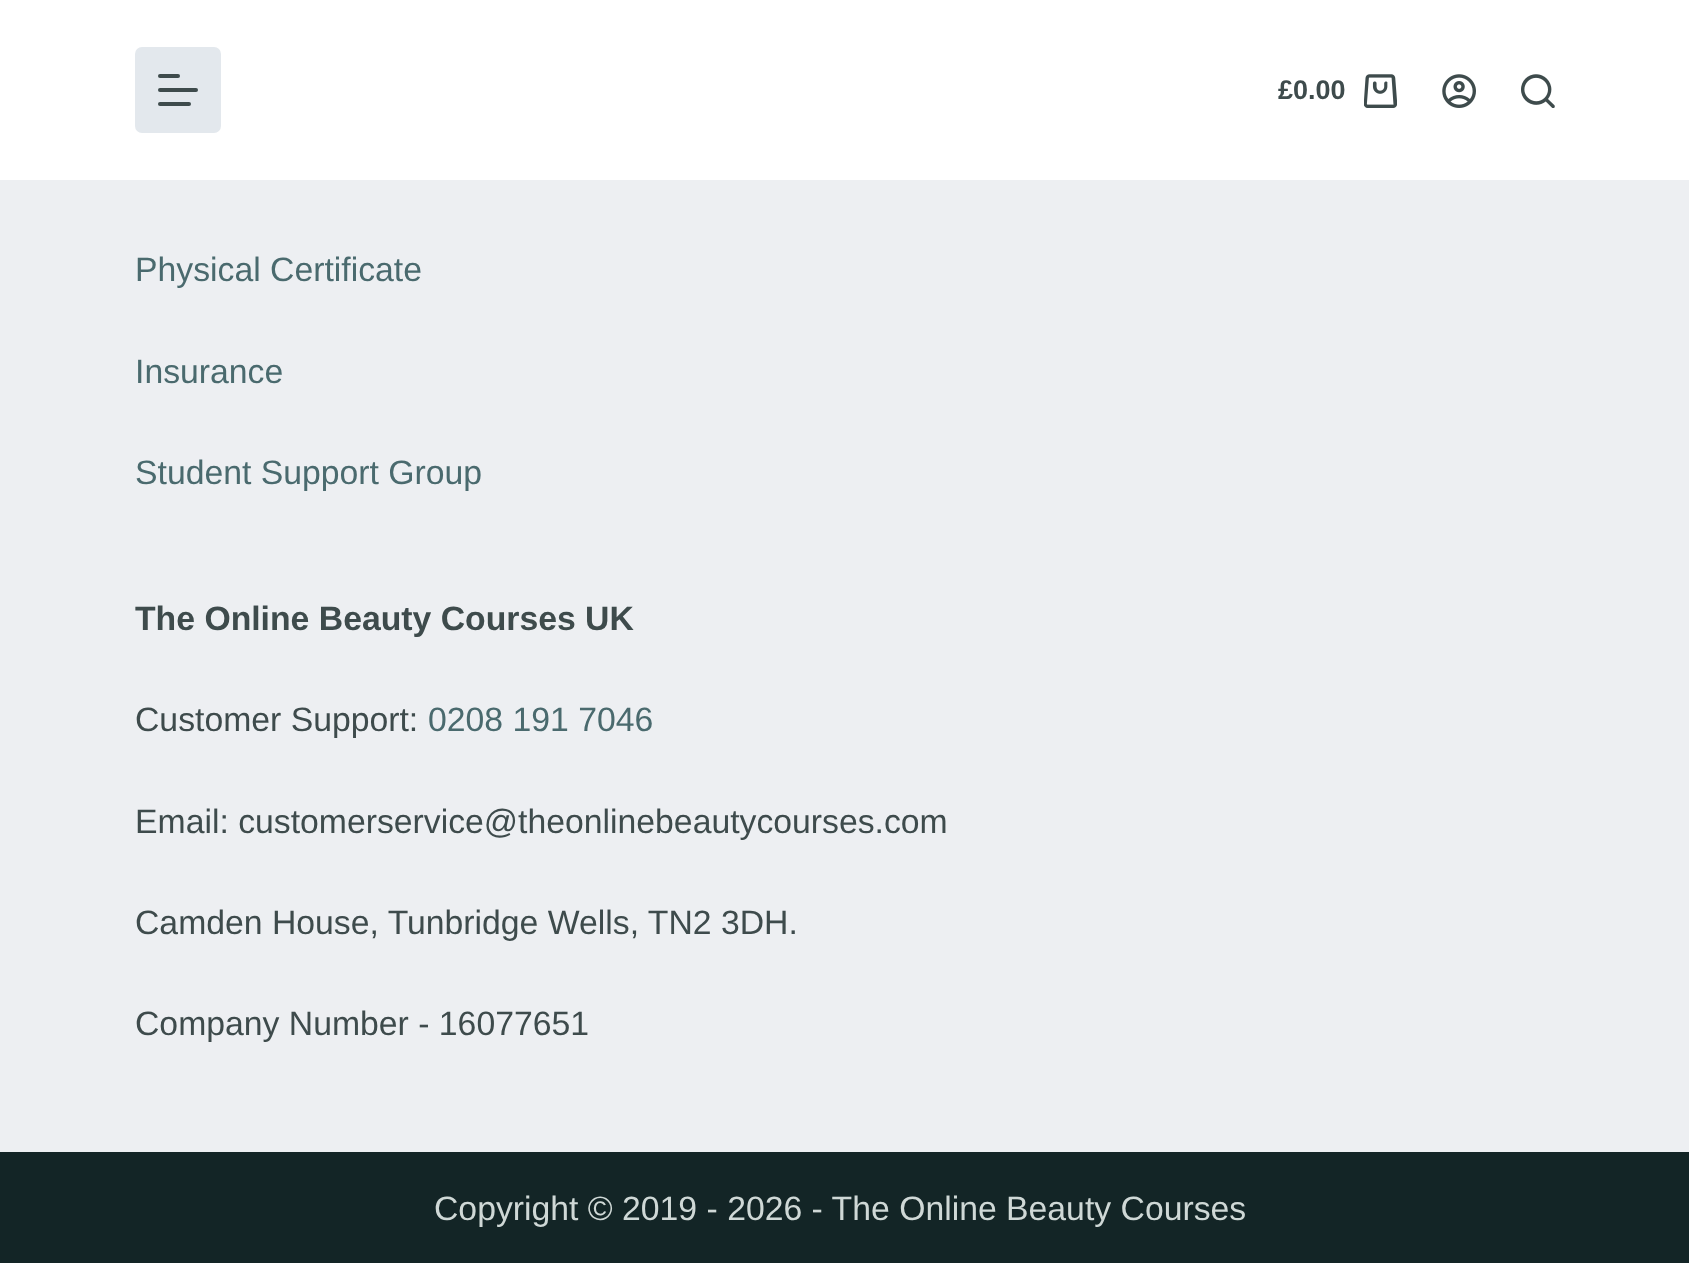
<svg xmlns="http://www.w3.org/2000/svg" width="1689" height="1263">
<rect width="100%" height="100%" fill="#edeff2"/>
<rect width="1689" height="180" fill="#fff"/>
<rect x="135" y="47" width="86" height="86" rx="7" fill="#e3e8ed"/>
<rect x="158" y="74" width="22" height="4" rx="2" fill="#3e4b4c"/>
<rect x="158" y="88" width="40" height="4" rx="2" fill="#3e4b4c"/>
<rect x="158" y="102" width="33" height="4" rx="2" fill="#3e4b4c"/>
<text x="1278" y="99" style="font-family:Liberation Sans;font-size:27px;font-weight:bold;fill:#3e4b4c">£0.00</text>
<image x="1364" y="74" width="33" height="34" href="media/1.png"/>
<image x="1442" y="74" width="34" height="34" href="media/2.png"/>
<image x="1521" y="74" width="34" height="34" href="media/3.png"/>
<text x="135" y="281" style="font-family:Liberation Sans;font-size:33.75px;fill:#4a6a6e">Physical Certificate</text>
<text x="135" y="383" style="font-family:Liberation Sans;font-size:33.75px;fill:#4a6a6e">Insurance</text>
<text x="135" y="484" style="font-family:Liberation Sans;font-size:33.75px;fill:#4a6a6e">Student Support Group</text>
<text x="135" y="630" style="font-family:Liberation Sans;font-size:33.75px;font-weight:bold;fill:#3e4b4c">The Online Beauty Courses UK</text>
<text x="135" y="731" style="font-family:Liberation Sans;font-size:33.75px;fill:#3e4b4c">Customer Support:</text>
<text x="428" y="731" style="font-family:Liberation Sans;font-size:33.75px;fill:#4a6a6e">0208 191 7046</text>
<text x="135" y="833" style="font-family:Liberation Sans;font-size:33.75px;fill:#3e4b4c">Email: customerservice@theonlinebeautycourses.com</text>
<text x="135" y="934" style="font-family:Liberation Sans;font-size:33.75px;fill:#3e4b4c">Camden House, Tunbridge Wells, TN2 3DH.</text>
<text x="135" y="1035" style="font-family:Liberation Sans;font-size:33.75px;fill:#3e4b4c">Company Number - 16077651</text>
<rect y="1152" width="1689" height="111" fill="#132526"/>
<text x="434" y="1220" style="font-family:Liberation Sans;font-size:33.75px;fill:#cfd8d6">Copyright © 2019 - 2026 - The Online Beauty Courses</text>
</svg>
